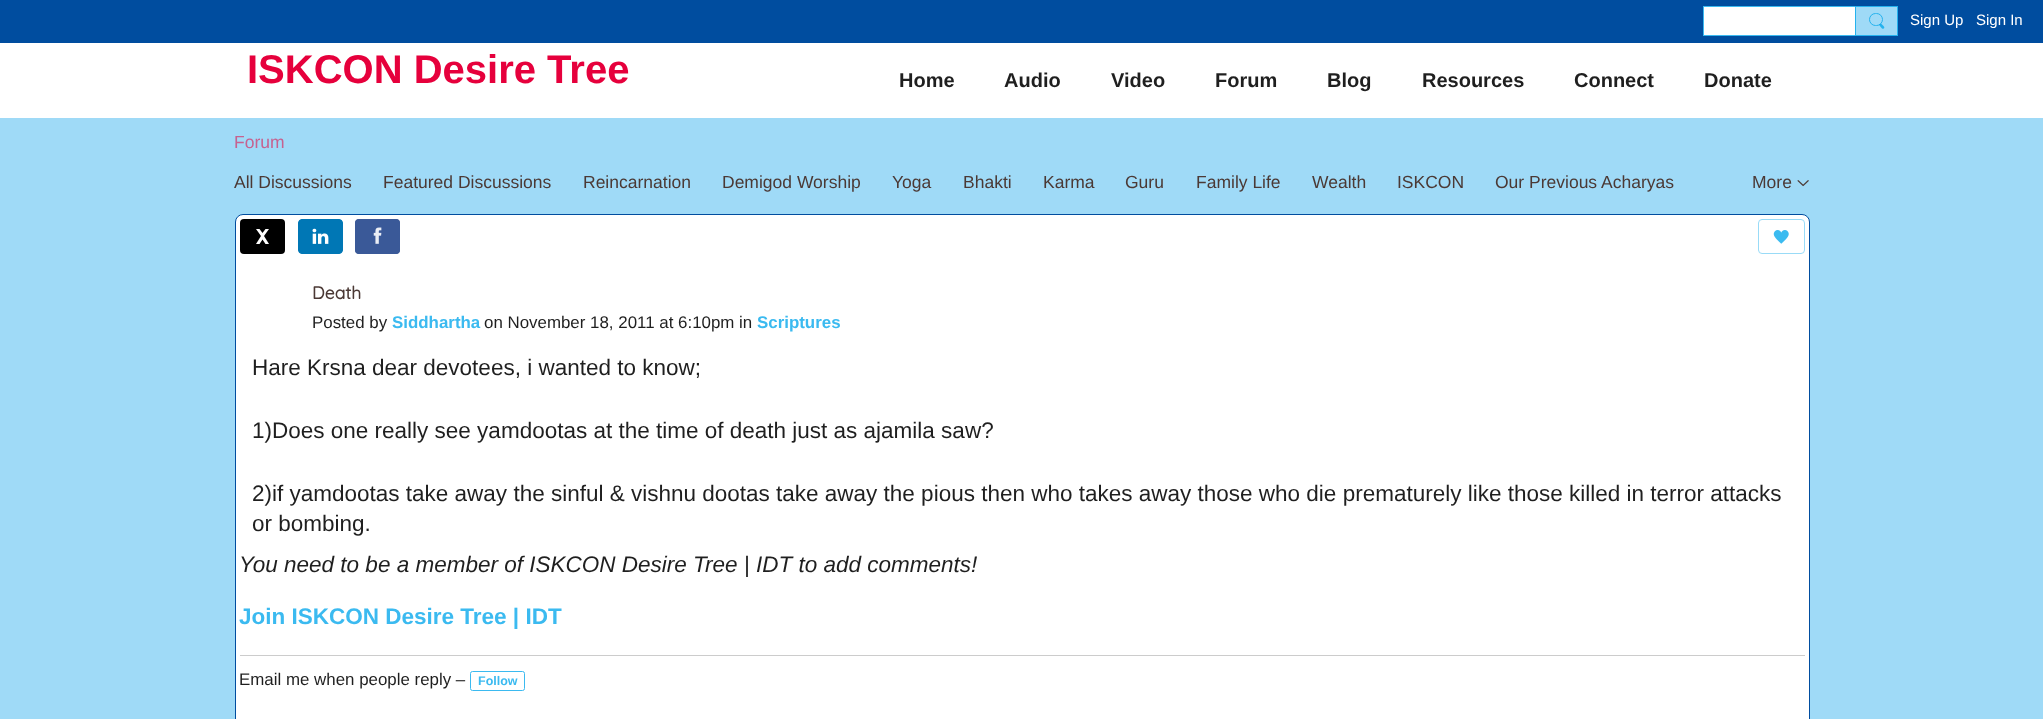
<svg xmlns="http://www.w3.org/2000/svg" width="2043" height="719">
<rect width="100%" height="100%" fill="#9fdaf7"/>
<rect width="2043" height="43" fill="#004d9f"/>
<rect x="1703.5" y="6.5" width="152" height="29" fill="#fff" stroke="#3bbaf0"/>
<rect x="1855.5" y="6.5" width="42" height="29" fill="#9fdaf7" stroke="#25b2ee"/>
<rect x="1869.5" y="13.5" width="13" height="12" rx="6" fill="none" stroke="#25b2ee"/>
<path d="M1881.5 24l2 2c2 2 0 3.5-1.5 2.5l-2.5-3c-1-1 1-2.5 2-1.5z" fill="#00a6ebc4"/>
<text x="1910" y="25" style="font-family:Liberation Sans;font-size:15px;fill:#fff">Sign Up</text>
<text x="1976" y="25" style="font-family:Liberation Sans;font-size:15px;fill:#fff">Sign In</text>
<rect y="43" width="2043" height="75" fill="#fff"/>
<text x="247" y="83" style="font-family:Liberation Sans;font-size:40px;font-weight:bold;fill:#e6003c">ISKCON Desire Tree</text>
<text x="899" y="87" style="font-family:Liberation Sans;font-size:20px;font-weight:bold;fill:#1f1f1f">Home</text>
<text x="1004" y="87" style="font-family:Liberation Sans;font-size:20px;font-weight:bold;fill:#1f1f1f">Audio</text>
<text x="1111" y="87" style="font-family:Liberation Sans;font-size:20px;font-weight:bold;fill:#1f1f1f">Video</text>
<text x="1215" y="87" style="font-family:Liberation Sans;font-size:20px;font-weight:bold;fill:#1f1f1f">Forum</text>
<text x="1327" y="87" style="font-family:Liberation Sans;font-size:20px;font-weight:bold;fill:#1f1f1f">Blog</text>
<text x="1422" y="87" style="font-family:Liberation Sans;font-size:20px;font-weight:bold;fill:#1f1f1f">Resources</text>
<text x="1574" y="87" style="font-family:Liberation Sans;font-size:20px;font-weight:bold;fill:#1f1f1f">Connect</text>
<text x="1704" y="87" style="font-family:Liberation Sans;font-size:20px;font-weight:bold;fill:#1f1f1f">Donate</text>
<text x="234" y="148" style="font-family:Liberation Sans;font-size:17.5px;fill:#c66290">Forum</text>
<text x="234" y="188" style="font-family:Liberation Sans;font-size:17.5px;fill:#4b3935">All Discussions</text>
<text x="383" y="188" style="font-family:Liberation Sans;font-size:17.5px;fill:#4b3935">Featured Discussions</text>
<text x="583" y="188" style="font-family:Liberation Sans;font-size:17.5px;fill:#4b3935">Reincarnation</text>
<text x="722" y="188" style="font-family:Liberation Sans;font-size:17.5px;fill:#4b3935">Demigod Worship</text>
<text x="892" y="188" style="font-family:Liberation Sans;font-size:17.5px;fill:#4b3935">Yoga</text>
<text x="963" y="188" style="font-family:Liberation Sans;font-size:17.5px;fill:#4b3935">Bhakti</text>
<text x="1043" y="188" style="font-family:Liberation Sans;font-size:17.5px;fill:#4b3935">Karma</text>
<text x="1125" y="188" style="font-family:Liberation Sans;font-size:17.5px;fill:#4b3935">Guru</text>
<text x="1196" y="188" style="font-family:Liberation Sans;font-size:17.5px;fill:#4b3935">Family Life</text>
<text x="1312" y="188" style="font-family:Liberation Sans;font-size:17.5px;fill:#4b3935">Wealth</text>
<text x="1397" y="188" style="font-family:Liberation Sans;font-size:17.5px;fill:#4b3935">ISKCON</text>
<text x="1495" y="188" style="font-family:Liberation Sans;font-size:17.5px;fill:#4b3935">Our Previous Acharyas</text>
<text x="1752" y="188" style="font-family:Liberation Sans;font-size:17.5px;fill:#4b3935">More</text>
<image x="1797" y="180" width="12" height="7" href="media/1.png"/>
<rect x="235.5" y="214.5" width="1574" height="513" rx="7.5" fill="#fff" stroke="#004d9f"/>
<rect x="240" y="219" width="45" height="35" rx="4" fill="#000"/>
<path d="M256 229l5 7l-5 8h3.5l3-4.5l3 4.5h3.5l-5-8l5-7h-3.5l-3 4l-3-4z" fill="#fff" fill-rule="evenodd"/>
<image x="298" y="219" width="45" height="35" href="media/2.png"/>
<rect x="355" y="219" width="45" height="35" rx="4" fill="#3b5998"/>
<image x="355" y="219" width="45" height="35" href="media/3.png"/>
<rect x="1758.5" y="219.5" width="46" height="34" rx="3.5" fill="none" stroke="#99dbf7"/>
<image x="1773" y="230" width="16" height="14" href="media/4.png"/>
<text x="312" y="299" style="font-family:Quicksand;font-size:17.5px;font-weight:bold;fill:#4b3935">Death</text>
<text x="312" y="328" style="font-family:Liberation Sans;font-size:16.9px;fill:#1f1f1f">Posted by</text>
<text x="392" y="328" style="font-family:Liberation Sans;font-size:16.9px;font-weight:bold;fill:#3bbaf0">Siddhartha</text>
<text x="484" y="328" style="font-family:Liberation Sans;font-size:16.9px;fill:#1f1f1f">on November 18, 2011 at 6:10pm in</text>
<text x="757" y="328" style="font-family:Liberation Sans;font-size:16.9px;font-weight:bold;fill:#3bbaf0">Scriptures</text>
<text x="252" y="375" style="font-family:Liberation Sans;font-size:22.5px;fill:#1f1f1f">Hare Krsna dear devotees, i wanted to know;</text>
<text x="252" y="438" style="font-family:Liberation Sans;font-size:22.5px;fill:#1f1f1f">1)Does one really see yamdootas at the time of death just as ajamila saw?</text>
<text x="252" y="501" style="font-family:Liberation Sans;font-size:22.5px;fill:#1f1f1f">2)if yamdootas take away the sinful &amp; vishnu dootas take away the pious then who takes away those who die prematurely like those killed in terror attacks</text>
<text x="252" y="531" style="font-family:Liberation Sans;font-size:22.5px;fill:#1f1f1f">or bombing.</text>
<text x="239" y="572" style="font-family:Liberation Sans;font-size:22.5px;font-style:italic;fill:#1f1f1f">You need to be a member of ISKCON Desire Tree | IDT to add comments!</text>
<text x="239" y="624" style="font-family:Liberation Sans;font-size:22.5px;font-weight:bold;fill:#3bbaf0">Join ISKCON Desire Tree | IDT</text>
<rect x="240" y="655" width="1565" height="1" fill="#ccc"/>
<text x="239" y="685" style="font-family:Liberation Sans;font-size:16.9px;fill:#1f1f1f">Email me when people reply –</text>
<rect x="470.5" y="671.5" width="54" height="19" rx="2" fill="none" stroke="#3bbaf0"/>
<text x="478" y="685" style="font-family:Liberation Sans;font-size:12.5px;font-weight:bold;fill:#3bbaf0">Follow</text>
</svg>
